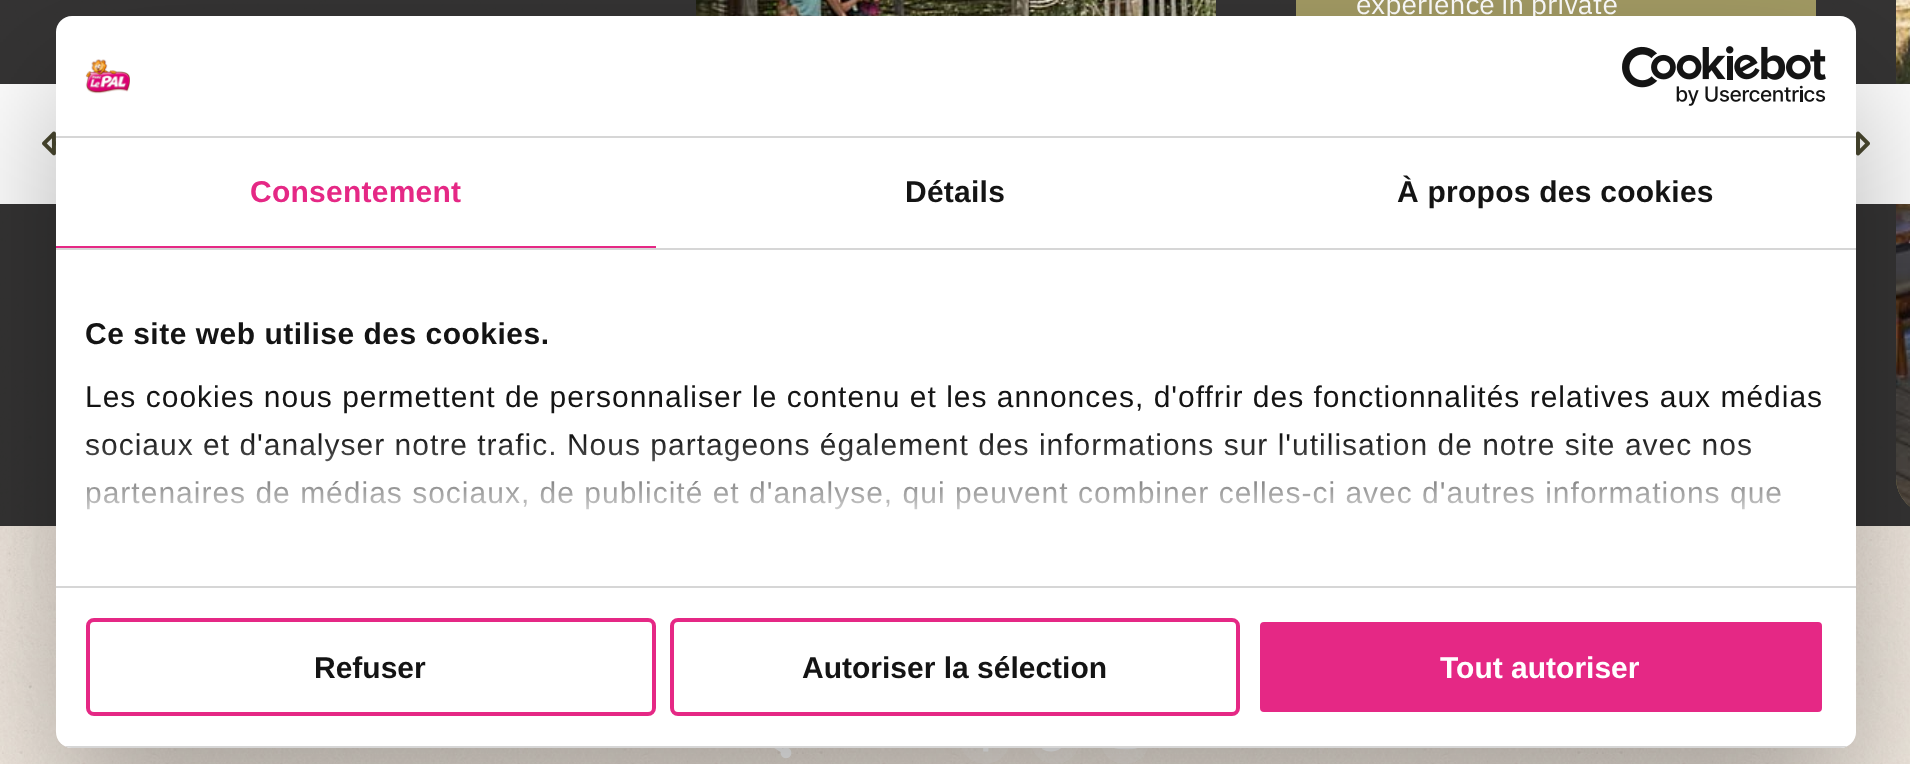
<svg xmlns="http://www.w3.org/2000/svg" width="1910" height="764">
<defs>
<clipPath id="clip1"><rect x="1896" y="-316" width="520" height="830" rx="36"/></clipPath>
<linearGradient id="g1" gradientUnits="userSpaceOnUse" x1="943" y1="586" x2="943" y2="436"><stop offset="0" stop-color="#fff"/><stop offset="0.5" stop-color="#fff" stop-opacity="0.8"/><stop offset="1" stop-color="#fff" stop-opacity="0"/></linearGradient>
<clipPath id="clip2"><rect x="56" y="16" width="1800" height="732" rx="16"/></clipPath>
</defs>
<rect width="100%" height="100%" fill="#fff"/>
<image x="0" y="0" width="1910" height="764" href="media/1.png"/>
<rect width="1910" height="526" fill="#2a2a2af2"/>
<image x="696" y="0" width="520" height="16" href="media/2.png"/>
<rect x="1296" width="520" height="16" fill="#a39b64"/>
<text x="1356" y="14" style="font-family:IBM Plex Sans;font-size:28px;fill:#fff">experience in private</text>
<g clip-path="url(#clip1)">
<rect x="1896" y="478" width="14" height="29" fill="#a39b64"/>
</g>
<image x="1896" y="0" width="14" height="506" href="media/3.png"/>
<rect y="84" width="56" height="120" fill="#fff"/>
<image x="42" y="131" width="14" height="25" href="media/4.png"/>
<rect x="1856" y="84" width="54" height="120" fill="#fff"/>
<image x="1856" y="131" width="14" height="25" href="media/5.png"/>
<image x="774" y="748" width="18" height="11" href="media/6.png"/>
<circle cx="985" cy="739" r="25" fill="#ffffff33"/>
<image x="983" y="748" width="6" height="4" href="media/7.png"/>
<circle cx="1055" cy="739" r="25" fill="#ffffff33"/>
<image x="1042" y="748" width="20" height="4" href="media/8.png"/>
<circle cx="1125" cy="739" r="25" fill="#ffffff33"/>
<image x="1114" y="748" width="24" height="2" href="media/9.png"/>
<rect x="56" y="80" width="1800" height="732" rx="16" fill="#0000004d" filter="blur(68px)"/>
<rect x="56" y="16" width="1800" height="732" rx="16" fill="#fff"/>
<rect x="56" y="136" width="1800" height="2" fill="#d6d6d6"/>
<image x="85" y="59" width="45" height="35" href="media/10.png"/>
<image x="1622" y="46" width="204" height="60" href="media/11.png"/>
<rect x="56" y="248" width="1800" height="2" fill="#d6d6d6"/>
<rect x="56" y="246" width="600" height="2" fill="#e52885"/>
<text x="250" y="202" style="font-family:Liberation Sans;font-size:30px;font-weight:bold;letter-spacing:0.25px;fill:#e52885">Consentement</text>
<text x="905" y="202" style="font-family:Liberation Sans;font-size:30px;font-weight:bold;letter-spacing:0.25px;fill:#141414">Détails</text>
<text x="1397" y="202" style="font-family:Liberation Sans;font-size:30px;font-weight:bold;letter-spacing:0.25px;fill:#141414">À propos des cookies</text>
<rect x="56" y="586" width="1800" height="2" fill="#d6d6d6"/>
<text x="85" y="344" style="font-family:Liberation Sans;font-size:30px;font-weight:bold;letter-spacing:0.5px;fill:#141414">Ce site web utilise des cookies.</text>
<text x="85" y="407" style="font-family:Liberation Sans;font-size:30px;letter-spacing:1px;fill:#141414">Les cookies nous permettent de personnaliser le contenu et les annonces, d'offrir des fonctionnalités relatives aux médias</text>
<text x="85" y="455" style="font-family:Liberation Sans;font-size:30px;letter-spacing:1px;fill:#141414">sociaux et d'analyser notre trafic. Nous partageons également des informations sur l'utilisation de notre site avec nos</text>
<text x="85" y="503" style="font-family:Liberation Sans;font-size:30px;letter-spacing:1px;fill:#141414">partenaires de médias sociaux, de publicité et d'analyse, qui peuvent combiner celles-ci avec d'autres informations que</text>
<rect x="86" y="438" width="1695" height="72" fill="url(#g1)"/>
<g clip-path="url(#clip2)">
<rect x="56" y="746" width="1800" height="2" fill="#d6d6d6"/>
</g>
<rect x="88" y="620" width="566" height="94" rx="6" fill="none" stroke="#e52885" stroke-width="4"/>
<text x="314" y="678" style="font-family:Liberation Sans;font-size:30px;font-weight:bold;fill:#141414">Refuser</text>
<rect x="672" y="620" width="566" height="94" rx="6" fill="none" stroke="#e52885" stroke-width="4"/>
<text x="802" y="678" style="font-family:Liberation Sans;font-size:30px;font-weight:bold;fill:#141414">Autoriser la sélection</text>
<rect x="1258" y="620" width="566" height="94" rx="6" fill="#e52885" stroke="#fff" stroke-width="4"/>
<text x="1440" y="678" style="font-family:Liberation Sans;font-size:30px;font-weight:bold;fill:#fff">Tout autoriser</text>
</svg>
